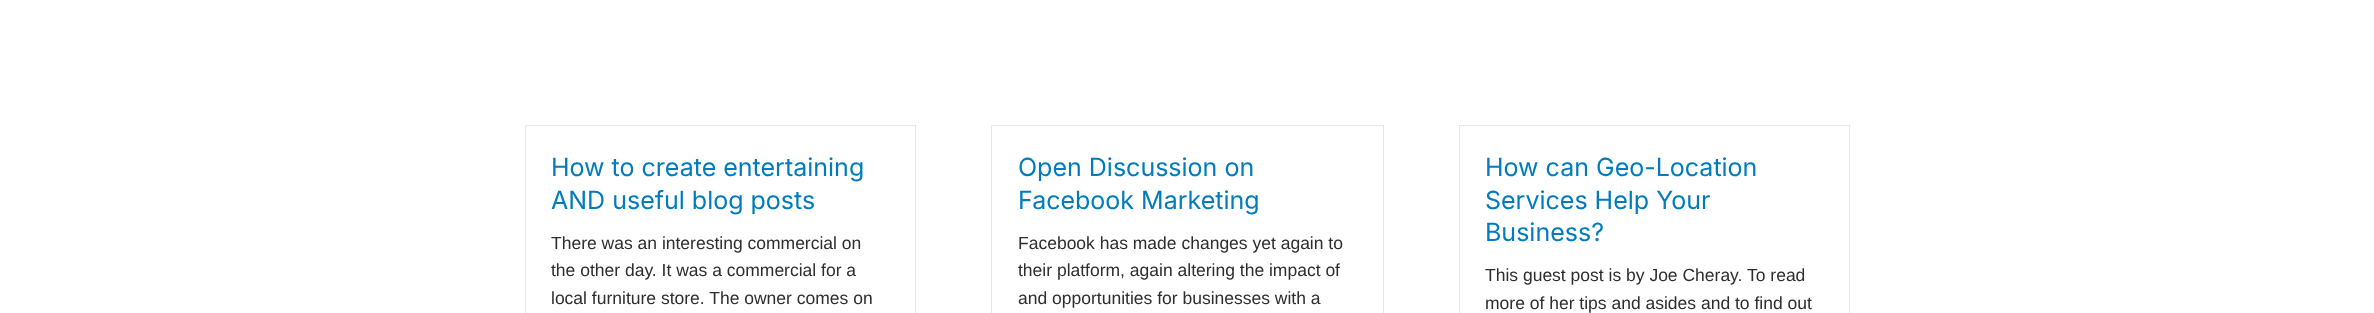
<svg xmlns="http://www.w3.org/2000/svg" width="2374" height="313">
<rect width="100%" height="100%" fill="#fff"/>
<rect x="525.5" y="125.5" width="390" height="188" fill="none" stroke="#e6e6e6"/>
<text x="551" y="176" style="font-family:Inter;font-size:25px;fill:#007cbe">How to create entertaining</text>
<text x="551" y="209" style="font-family:Inter;font-size:25px;fill:#007cbe">AND useful blog posts</text>
<text x="551" y="249" style="font-family:Liberation Sans;font-size:17.5px;fill:#2d2d2d">There was an interesting commercial on</text>
<text x="551" y="276" style="font-family:Liberation Sans;font-size:17.5px;fill:#2d2d2d">the other day. It was a commercial for a</text>
<text x="551" y="304" style="font-family:Liberation Sans;font-size:17.5px;fill:#2d2d2d">local furniture store. The owner comes on</text>
<rect x="991.5" y="125.5" width="392" height="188" fill="none" stroke="#e6e6e6"/>
<text x="1018" y="176" style="font-family:Inter;font-size:25px;fill:#007cbe">Open Discussion on</text>
<text x="1018" y="209" style="font-family:Inter;font-size:25px;fill:#007cbe">Facebook Marketing</text>
<text x="1018" y="249" style="font-family:Liberation Sans;font-size:17.5px;fill:#2d2d2d">Facebook has made changes yet again to</text>
<text x="1018" y="276" style="font-family:Liberation Sans;font-size:17.5px;fill:#2d2d2d">their platform, again altering the impact of</text>
<text x="1018" y="304" style="font-family:Liberation Sans;font-size:17.5px;fill:#2d2d2d">and opportunities for businesses with a</text>
<rect x="1459.5" y="125.5" width="390" height="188" fill="none" stroke="#e6e6e6"/>
<text x="1485" y="176" style="font-family:Inter;font-size:25px;fill:#007cbe">How can Geo-Location</text>
<text x="1485" y="209" style="font-family:Inter;font-size:25px;fill:#007cbe">Services Help Your</text>
<text x="1485" y="241" style="font-family:Inter;font-size:25px;fill:#007cbe">Business?</text>
<text x="1485" y="281" style="font-family:Liberation Sans;font-size:17.5px;fill:#2d2d2d">This guest post is by Joe Cheray. To read</text>
<text x="1485" y="309" style="font-family:Liberation Sans;font-size:17.5px;fill:#2d2d2d">more of her tips and asides and to find out</text>
</svg>
